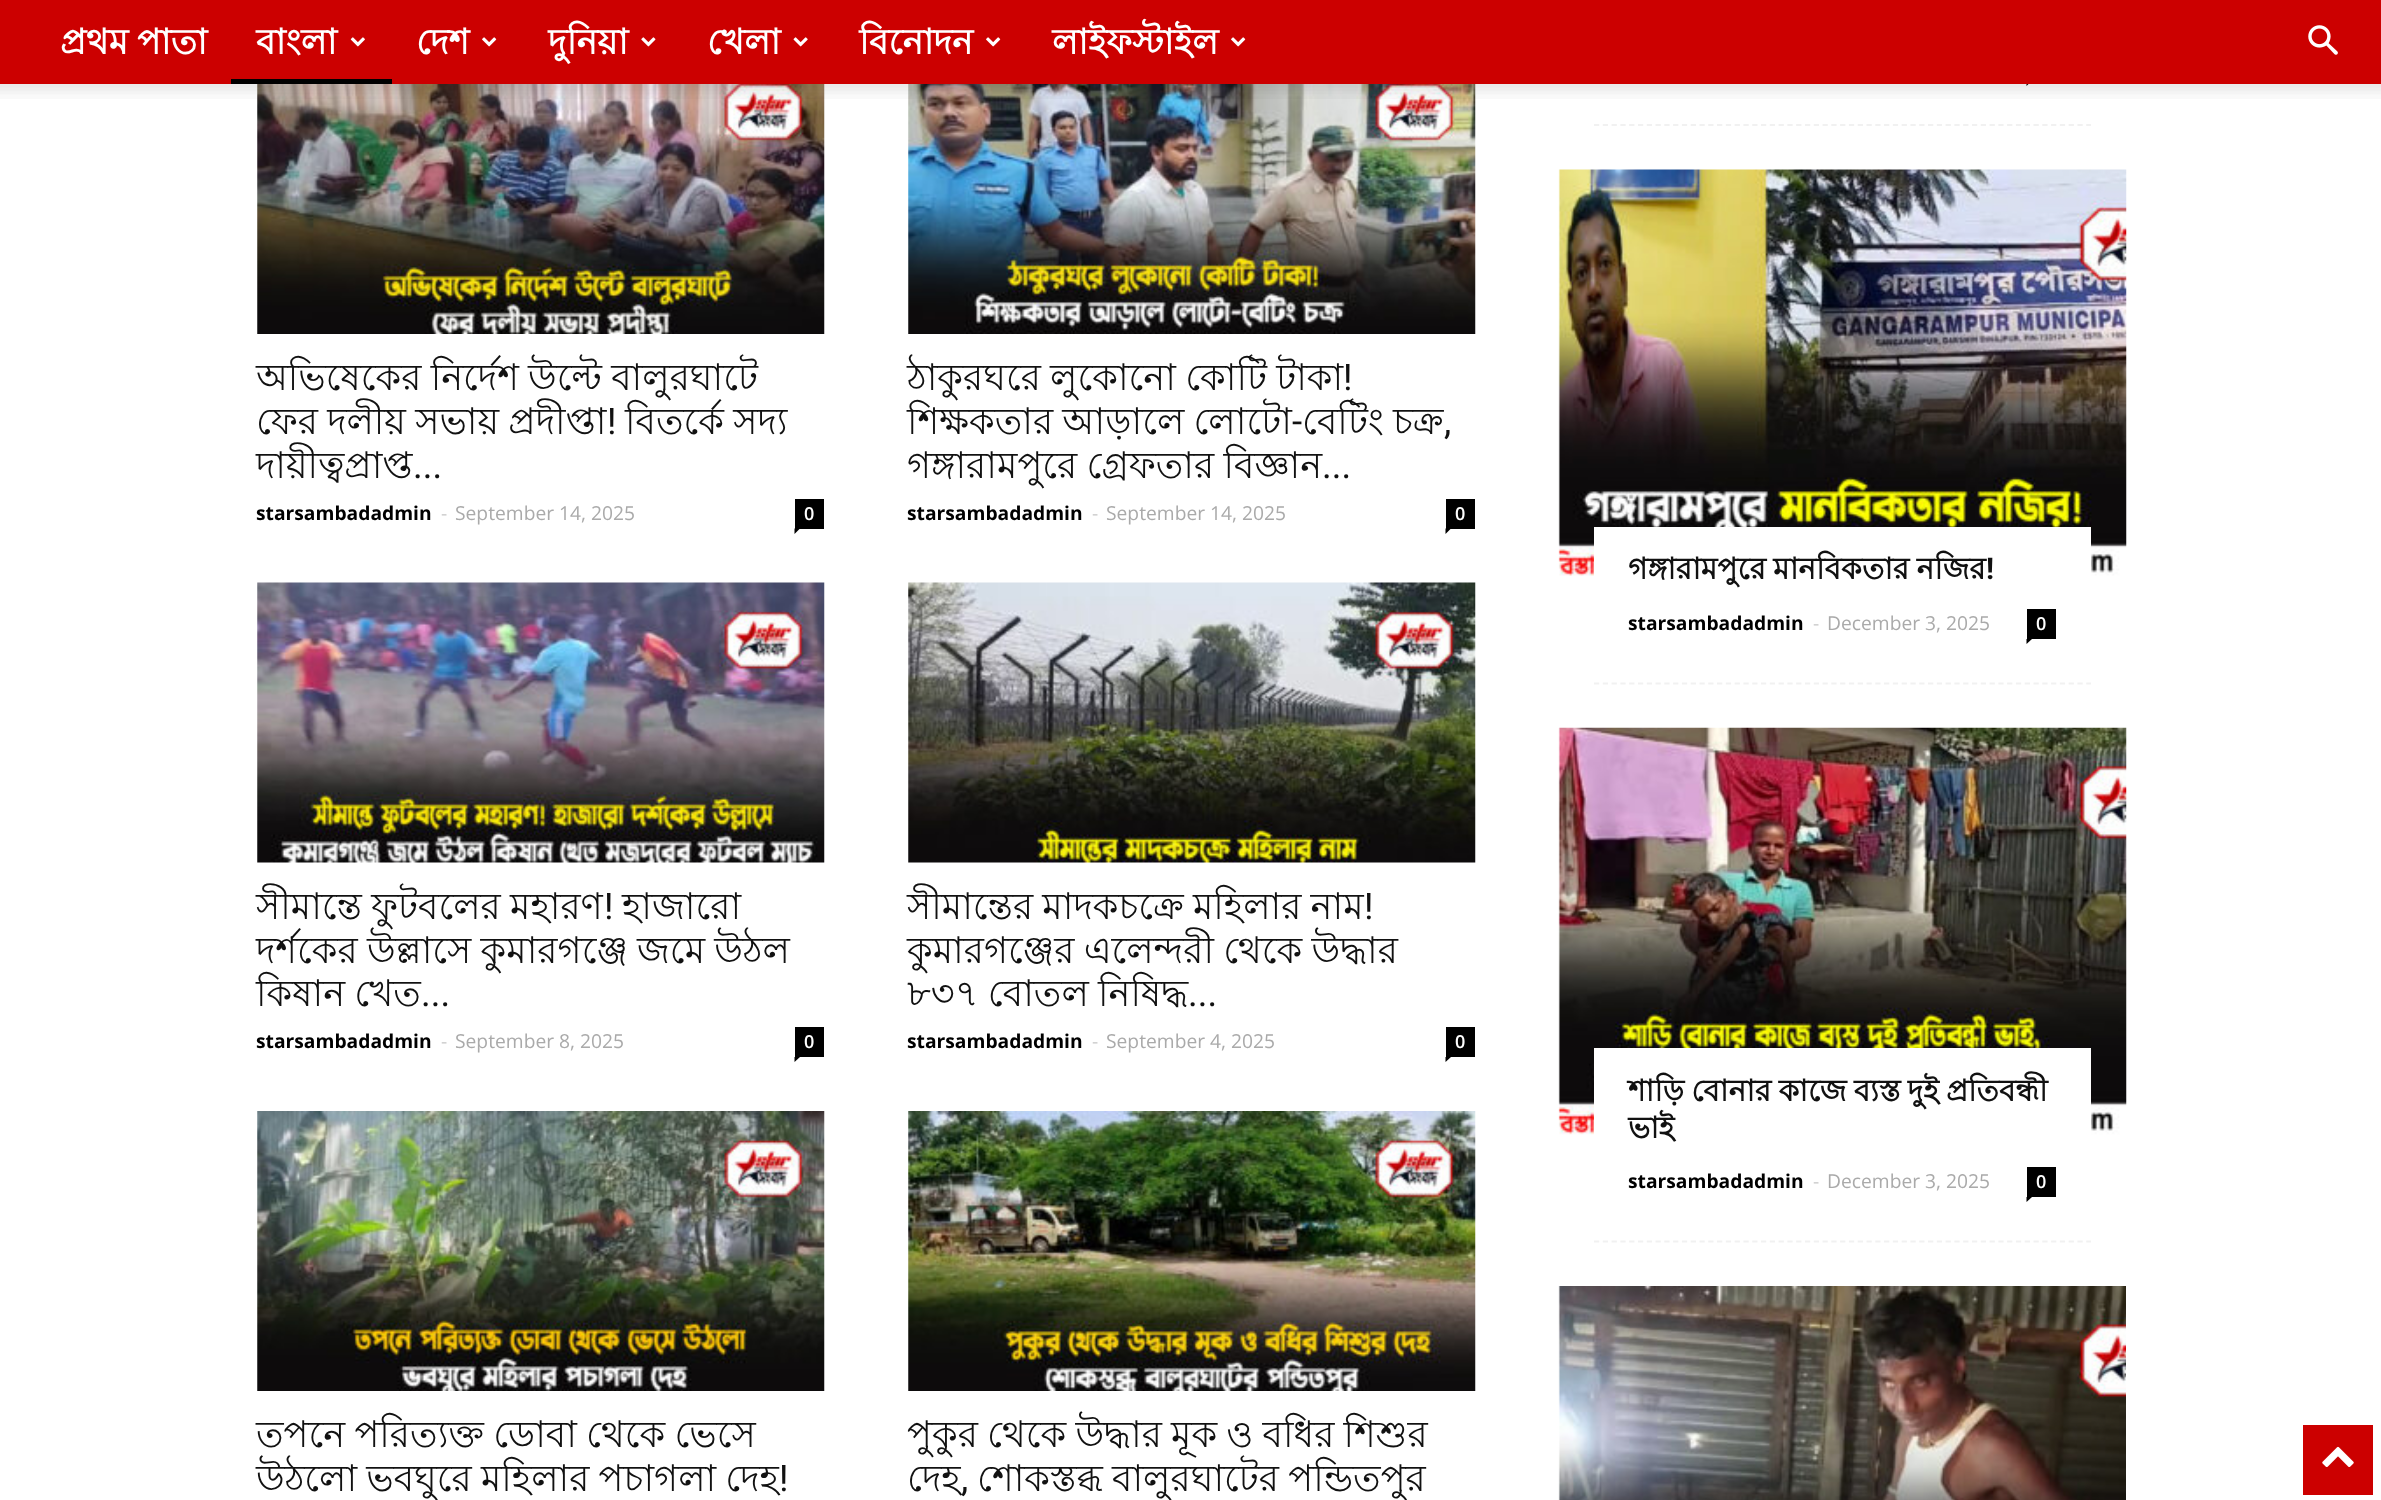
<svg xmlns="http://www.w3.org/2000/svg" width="2381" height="1500">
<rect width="100%" height="100%" fill="#fff"/>
<path d="M2026.5 80.5h5.5l-5.5 5.5z" fill="#000"/>
<rect width="2381" height="84" fill="#c00"/>
<text x="60" y="54" word-spacing="-1" style="font-family:Lohit Bengali;font-size:35px;font-weight:bold;fill:#fff">প্রথম পাতা</text>
<text x="256" y="54" style="font-family:Lohit Bengali;font-size:35px;font-weight:bold;fill:#fff">বাংলা</text>
<image x="350" y="37" width="15" height="10" href="media/1.png"/>
<rect x="231" y="79" width="161" height="5" fill="#000"/>
<text x="416" y="54" style="font-family:Lohit Bengali;font-size:35px;font-weight:bold;fill:#fff">দেশ</text>
<image x="482" y="37" width="15" height="10" href="media/2.png"/>
<text x="548" y="54" style="font-family:Lohit Bengali;font-size:35px;font-weight:bold;fill:#fff">দুনিয়া</text>
<image x="641" y="37" width="15" height="10" href="media/3.png"/>
<text x="707" y="54" style="font-family:Lohit Bengali;font-size:35px;font-weight:bold;fill:#fff">খেলা</text>
<image x="793" y="37" width="15" height="10" href="media/4.png"/>
<text x="859" y="54" style="font-family:Lohit Bengali;font-size:35px;font-weight:bold;fill:#fff">বিনোদন</text>
<image x="986" y="37" width="15" height="10" href="media/2.png"/>
<text x="1052" y="54" style="font-family:Lohit Bengali;font-size:35px;font-weight:bold;fill:#fff">লাইফস্টাইল</text>
<image x="1231" y="37" width="15" height="10" href="media/2.png"/>
<image x="2308" y="25" width="30" height="30" href="media/5.png"/>
<image x="257" y="84" width="568" height="250" href="media/7.png"/>
<image x="908" y="84" width="568" height="250" href="media/8.png"/>
<image x="0" y="84" width="2381" height="15" href="media/6.png"/>
<text x="256" y="390" word-spacing="-1" style="font-family:Lohit Bengali;font-size:36.75px;fill:#111">অভিষেকের নির্দেশ উল্টে বালুরঘাটে</text>
<text x="256" y="434" word-spacing="-1" style="font-family:Lohit Bengali;font-size:36.75px;fill:#111">ফের দলীয় সভায় প্রদীপ্তা</text>
<text x="607" y="434" style="font-family:Roboto;font-size:36.75px;fill:#111">!</text>
<text x="625" y="434" word-spacing="-1" style="font-family:Lohit Bengali;font-size:36.75px;fill:#111">বিতর্কে সদ্য</text>
<text x="256" y="478" style="font-family:Lohit Bengali;font-size:36.75px;fill:#111">দায়ীত্বপ্রাপ্ত</text>
<text x="413" y="478" style="font-family:Roboto;font-size:36.75px;fill:#111">...</text>
<text x="256" y="520" style="font-family:Open Sans;font-size:19.25px;font-weight:bold;fill:#000">starsambadadmin</text>
<text x="441" y="520" style="font-family:Open Sans;font-size:19.25px;fill:#ccc">-</text>
<text x="455" y="520" style="font-family:Open Sans;font-size:19.25px;fill:#aaa">September 14, 2025</text>
<rect x="795" y="499" width="29" height="30" fill="#000"/>
<text x="804" y="520" style="font-family:Open Sans;font-size:18px;font-weight:600;fill:#fff">0</text>
<path d="M794.5 528.5h5.5l-5.5 5.5z" fill="#000"/>
<text x="907" y="390" word-spacing="-1" style="font-family:Lohit Bengali;font-size:36.75px;fill:#111">ঠাকুরঘরে লুকোনো কোটি টাকা</text>
<text x="1343" y="390" style="font-family:Roboto;font-size:36.75px;fill:#111">!</text>
<text x="907" y="434" word-spacing="-1" style="font-family:Lohit Bengali;font-size:36.75px;fill:#111">শিক্ষকতার আড়ালে লোটো</text>
<text x="1292" y="434" style="font-family:Roboto;font-size:36.75px;fill:#111">-</text>
<text x="1302" y="434" word-spacing="-1" style="font-family:Lohit Bengali;font-size:36.75px;fill:#111">বেটিং চক্র</text>
<text x="1444" y="434" style="font-family:Roboto;font-size:36.75px;fill:#111">,</text>
<text x="907" y="478" word-spacing="-1" style="font-family:Lohit Bengali;font-size:36.75px;fill:#111">গঙ্গারামপুরে গ্রেফতার বিজ্ঞান</text>
<text x="1322" y="478" style="font-family:Roboto;font-size:36.75px;fill:#111">...</text>
<text x="907" y="520" style="font-family:Open Sans;font-size:19.25px;font-weight:bold;fill:#000">starsambadadmin</text>
<text x="1092" y="520" style="font-family:Open Sans;font-size:19.25px;fill:#ccc">-</text>
<text x="1106" y="520" style="font-family:Open Sans;font-size:19.25px;fill:#aaa">September 14, 2025</text>
<rect x="1446" y="499" width="29" height="30" fill="#000"/>
<text x="1455" y="520" style="font-family:Open Sans;font-size:18px;font-weight:600;fill:#fff">0</text>
<path d="M1445.5 528.5h5.5l-5.5 5.5z" fill="#000"/>
<image x="257" y="582" width="568" height="281" href="media/9.png"/>
<text x="256" y="919" word-spacing="-1" style="font-family:Lohit Bengali;font-size:36.75px;fill:#111">সীমান্তে ফুটবলের মহারণ</text>
<text x="604" y="919" style="font-family:Roboto;font-size:36.75px;fill:#111">!</text>
<text x="622" y="919" style="font-family:Lohit Bengali;font-size:36.75px;fill:#111">হাজারো</text>
<text x="256" y="963" word-spacing="-1" style="font-family:Lohit Bengali;font-size:36.75px;fill:#111">দর্শকের উল্লাসে কুমারগঞ্জে জমে উঠল</text>
<text x="256" y="1006" word-spacing="-1" style="font-family:Lohit Bengali;font-size:36.75px;fill:#111">কিষান খেত</text>
<text x="421" y="1006" style="font-family:Roboto;font-size:36.75px;fill:#111">...</text>
<text x="256" y="1048" style="font-family:Open Sans;font-size:19.25px;font-weight:bold;fill:#000">starsambadadmin</text>
<text x="441" y="1048" style="font-family:Open Sans;font-size:19.25px;fill:#ccc">-</text>
<text x="455" y="1048" style="font-family:Open Sans;font-size:19.25px;fill:#aaa">September 8, 2025</text>
<rect x="795" y="1027" width="29" height="30" fill="#000"/>
<text x="804" y="1048" style="font-family:Open Sans;font-size:18px;font-weight:600;fill:#fff">0</text>
<path d="M794.5 1057h5.5l-5.5 5z" fill="#000"/>
<image x="908" y="582" width="568" height="281" href="media/10.png"/>
<text x="907" y="919" word-spacing="-1" style="font-family:Lohit Bengali;font-size:36.75px;fill:#111">সীমান্তের মাদকচক্রে মহিলার নাম</text>
<text x="1364" y="919" style="font-family:Roboto;font-size:36.75px;fill:#111">!</text>
<text x="907" y="963" word-spacing="-1" style="font-family:Lohit Bengali;font-size:36.75px;fill:#111">কুমারগঞ্জের এলেন্দরী থেকে উদ্ধার</text>
<text x="907" y="1006" word-spacing="-1" style="font-family:Lohit Bengali;font-size:36.75px;fill:#111">৮৩৭ বোতল নিষিদ্ধ</text>
<text x="1188" y="1006" style="font-family:Roboto;font-size:36.75px;fill:#111">...</text>
<text x="907" y="1048" style="font-family:Open Sans;font-size:19.25px;font-weight:bold;fill:#000">starsambadadmin</text>
<text x="1092" y="1048" style="font-family:Open Sans;font-size:19.25px;fill:#ccc">-</text>
<text x="1106" y="1048" style="font-family:Open Sans;font-size:19.25px;fill:#aaa">September 4, 2025</text>
<rect x="1446" y="1027" width="29" height="30" fill="#000"/>
<text x="1455" y="1048" style="font-family:Open Sans;font-size:18px;font-weight:600;fill:#fff">0</text>
<path d="M1445.5 1057h5.5l-5.5 5z" fill="#000"/>
<image x="257" y="1111" width="568" height="280" href="media/11.png"/>
<text x="256" y="1447" word-spacing="-1" style="font-family:Lohit Bengali;font-size:36.75px;fill:#111">তপনে পরিত্যক্ত ডোবা থেকে ভেসে</text>
<text x="256" y="1491" word-spacing="-1" style="font-family:Lohit Bengali;font-size:36.75px;fill:#111">উঠলো ভবঘুরে মহিলার পচাগলা দেহ</text>
<text x="779" y="1491" style="font-family:Roboto;font-size:36.75px;fill:#111">!</text>
<image x="908" y="1111" width="568" height="280" href="media/12.png"/>
<text x="907" y="1447" word-spacing="-1" style="font-family:Lohit Bengali;font-size:36.75px;fill:#111">পুকুর থেকে উদ্ধার মূক ও বধির শিশুর</text>
<text x="907" y="1491" style="font-family:Lohit Bengali;font-size:36.75px;fill:#111">দেহ</text>
<text x="961" y="1491" style="font-family:Roboto;font-size:36.75px;fill:#111">,</text>
<text x="977" y="1491" word-spacing="-1" style="font-family:Lohit Bengali;font-size:36.75px;fill:#111">শোকস্তব্ধ বালুরঘাটের পন্ডিতপুর</text>
<path d="M1594 125h497" fill="none" stroke="#f1f1f1" stroke-width="1.8" stroke-dasharray="5.25 3.54"/>
<image x="1558" y="169" width="569" height="412" href="media/13.png"/>
<rect x="1594" y="527" width="497" height="54" fill="#fff"/>
<path d="M1594 683.5h497" fill="none" stroke="#f1f1f1" stroke-width="1.8" stroke-dasharray="5.25 3.54"/>
<text x="1628" y="579" word-spacing="-1" style="font-family:Lohit Bengali;font-size:29.75px;font-weight:bold;fill:#111">গঙ্গারামপুরে মানবিকতার নজির</text>
<text x="1986" y="579" style="font-family:Roboto;font-size:29.75px;font-weight:bold;fill:#111">!</text>
<text x="1628" y="630" style="font-family:Open Sans;font-size:19.25px;font-weight:bold;fill:#000">starsambadadmin</text>
<text x="1813" y="630" style="font-family:Open Sans;font-size:19.25px;fill:#ccc">-</text>
<text x="1827" y="630" style="font-family:Open Sans;font-size:19.25px;fill:#aaa">December 3, 2025</text>
<rect x="2027" y="609" width="29" height="30" fill="#000"/>
<text x="2036" y="630" style="font-family:Open Sans;font-size:18px;font-weight:600;fill:#fff">0</text>
<path d="M2026.5 639h5.5l-5.5 5z" fill="#000"/>
<image x="1558" y="727" width="569" height="412" href="media/14.png"/>
<rect x="1594" y="1048" width="497" height="91" fill="#fff"/>
<path d="M1594 1241.5h497" fill="none" stroke="#f1f1f1" stroke-width="1.8" stroke-dasharray="5.25 3.54"/>
<text x="1628" y="1101" word-spacing="-1" style="font-family:Lohit Bengali;font-size:29.75px;font-weight:bold;fill:#111">শাড়ি বোনার কাজে ব্যস্ত দুই প্রতিবন্ধী</text>
<text x="1628" y="1138" style="font-family:Lohit Bengali;font-size:29.75px;font-weight:bold;fill:#111">ভাই</text>
<text x="1628" y="1188" style="font-family:Open Sans;font-size:19.25px;font-weight:bold;fill:#000">starsambadadmin</text>
<text x="1813" y="1188" style="font-family:Open Sans;font-size:19.25px;fill:#ccc">-</text>
<text x="1827" y="1188" style="font-family:Open Sans;font-size:19.25px;fill:#aaa">December 3, 2025</text>
<rect x="2027" y="1167" width="29" height="30" fill="#000"/>
<text x="2036" y="1188" style="font-family:Open Sans;font-size:18px;font-weight:600;fill:#fff">0</text>
<path d="M2026.5 1197h5.5l-5.5 5z" fill="#000"/>
<image x="1558" y="1286" width="568" height="214" href="media/15.png"/>
<rect x="2303" y="1425" width="70" height="70" fill="#c00"/>
<image x="2322" y="1446" width="32" height="21" href="media/16.png"/>
</svg>
